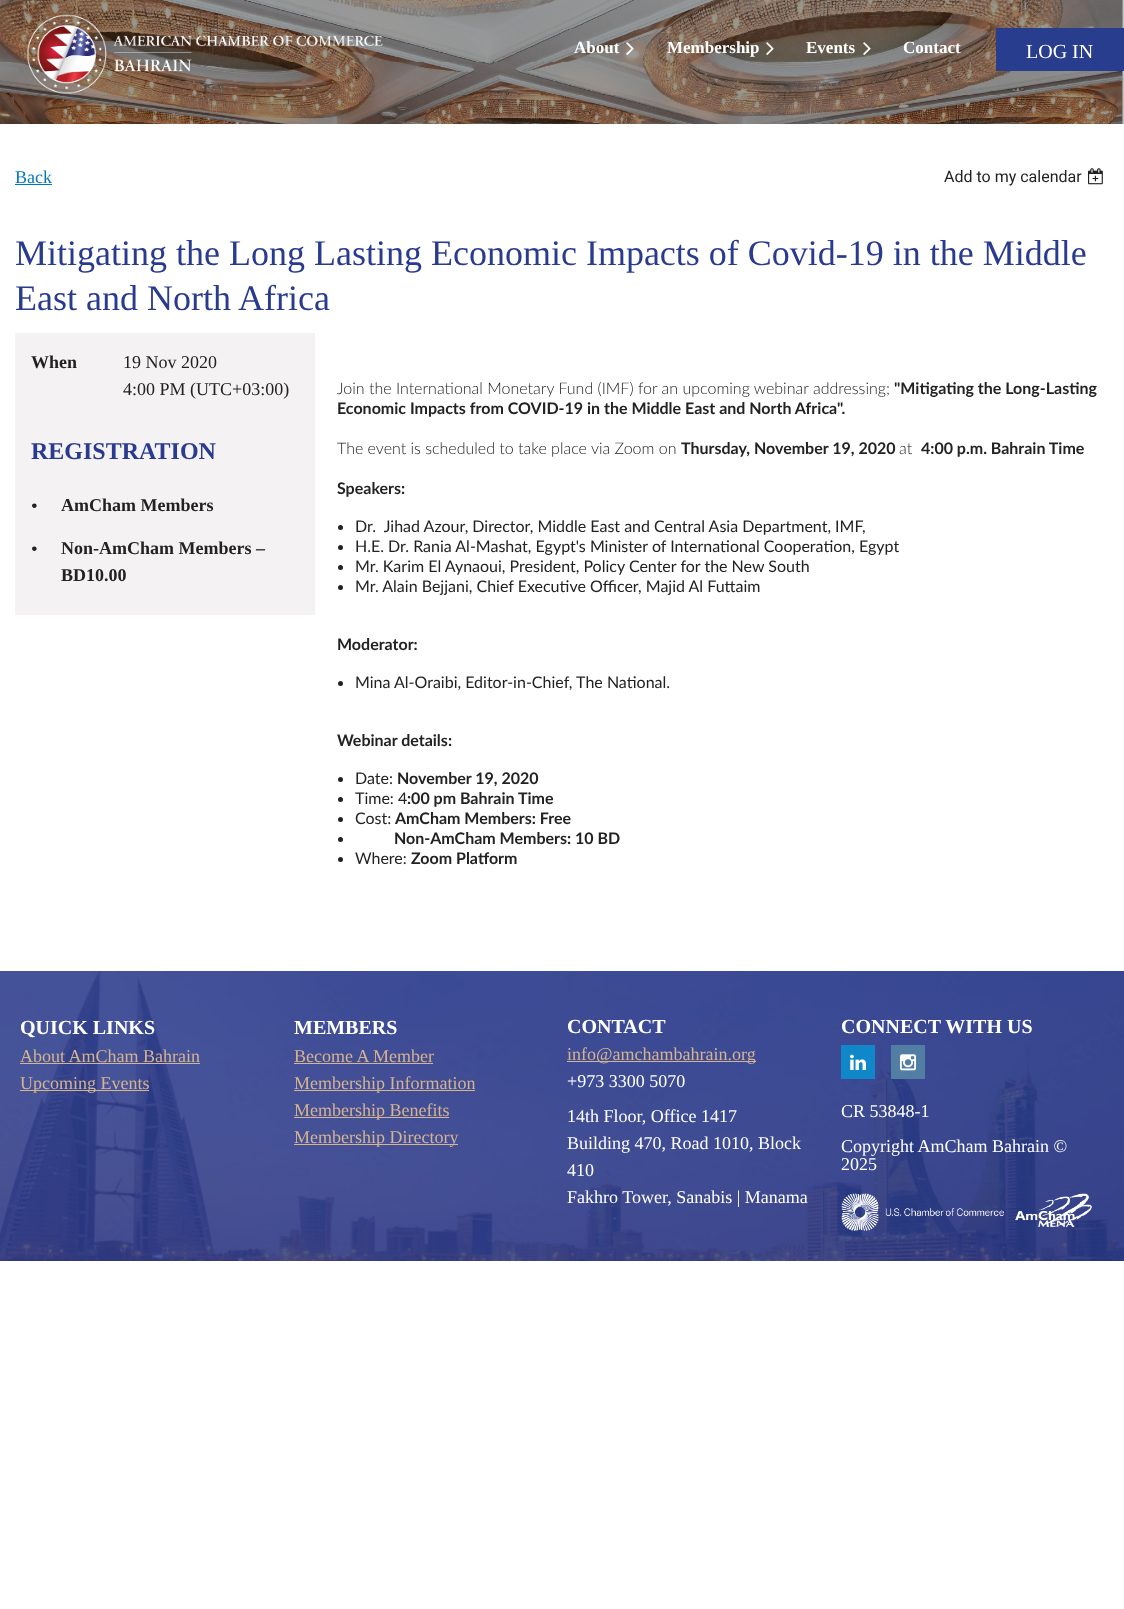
<svg xmlns="http://www.w3.org/2000/svg" width="1124" height="1609">
<rect width="100%" height="100%" fill="#fff"/>
<image x="0" y="0" width="1124" height="124" href="media/1.png"/>
<image x="26" y="14" width="357" height="81" href="media/2.png"/>
<text x="574" y="53" style="font-family:Liberation Serif;font-size:17px;font-weight:bold;fill:#fff">About</text>
<image x="626" y="42" width="8" height="13" href="media/3.png"/>
<text x="667" y="53" style="font-family:Liberation Serif;font-size:17px;font-weight:bold;fill:#fff">Membership</text>
<image x="766" y="42" width="8" height="13" href="media/4.png"/>
<text x="806" y="53" style="font-family:Liberation Serif;font-size:17px;font-weight:bold;fill:#fff">Events</text>
<image x="863" y="42" width="8" height="13" href="media/5.png"/>
<text x="903" y="53" style="font-family:Liberation Serif;font-size:17px;font-weight:bold;fill:#fff">Contact</text>
<rect x="996" y="28" width="128" height="43" fill="#293d8f"/>
<text x="1026" y="58" style="font-family:Liberation Serif;font-size:20px;fill:#fff">LOG IN</text>
<text x="15" y="183" style="font-family:Liberation Serif;font-size:18px;fill:#0078ba">Back</text>
<rect x="15" y="184" width="37" height="1" fill="#0078ba"/>
<text x="944" y="182" style="font-family:Roboto;font-size:16px;fill:#222">Add to my calendar</text>
<image x="1088" y="168" width="15" height="17" href="media/6.png"/>
<text x="15" y="265" style="font-family:Liberation Serif;font-size:36px;fill:#293b8f">Mitigating the Long Lasting Economic Impacts of Covid-19 in the Middle</text>
<text x="15" y="310" style="font-family:Liberation Serif;font-size:36px;fill:#293b8f">East and North Africa</text>
<rect x="15" y="333" width="300" height="282" fill="#f4f2f2"/>
<text x="31" y="368" style="font-family:Liberation Serif;font-size:18px;font-weight:bold;fill:#222">When</text>
<text x="123" y="368" style="font-family:Liberation Serif;font-size:18px;fill:#222">19 Nov 2020</text>
<text x="123" y="395" style="font-family:Liberation Serif;font-size:18px;fill:#222">4:00 PM (UTC+03:00)</text>
<text x="31" y="459" style="font-family:Liberation Serif;font-size:24px;font-weight:bold;fill:#293b8f">REGISTRATION</text>
<text x="31" y="512" style="font-family:Liberation Serif;font-size:19px;fill:#222">•</text>
<text x="61" y="511" style="font-family:Liberation Serif;font-size:18px;font-weight:bold;fill:#222">AmCham Members</text>
<text x="31" y="555" style="font-family:Liberation Serif;font-size:19px;fill:#222">•</text>
<text x="61" y="554" style="font-family:Liberation Serif;font-size:18px;font-weight:bold;fill:#222">Non-AmCham Members –</text>
<text x="61" y="581" style="font-family:Liberation Serif;font-size:18px;font-weight:bold;fill:#222">BD10.00</text>
<text x="337" y="394" style="font-family:Lato;font-size:16px;font-weight:300;fill:#222">Join the International Monetary Fund (IMF) for an upcoming webinar addressing;</text>
<text x="894" y="394" style="font-family:Lato;font-size:16px;font-weight:bold;fill:#222">"Mitigating the Long-Lasting</text>
<text x="337" y="414" style="font-family:Lato;font-size:16px;font-weight:bold;fill:#222">Economic Impacts from COVID-19 in the Middle East and North Africa".</text>
<text x="337" y="454" style="font-family:Lato;font-size:16px;font-weight:300;fill:#222">The event is scheduled to take place via Zoom on</text>
<text x="681" y="454" style="font-family:Lato;font-size:16px;font-weight:bold;fill:#222">Thursday, November 19, 2020</text>
<text x="899" y="454" style="font-family:Lato;font-size:16px;font-weight:300;fill:#222">at</text>
<text x="921" y="454" style="font-family:Lato;font-size:16px;font-weight:bold;fill:#222">4:00 p.m. Bahrain Time</text>
<text x="337" y="494" style="font-family:Lato;font-size:16px;font-weight:bold;fill:#222">Speakers:</text>
<circle cx="340.5" cy="527.5" r="2.5" fill="#222"/>
<text x="355" y="532" style="font-family:Lato;font-size:16px;fill:#222" xml:space="preserve">Dr.  Jihad Azour, Director, Middle East and Central Asia Department, IMF,</text>
<circle cx="340.5" cy="547.5" r="2.5" fill="#222"/>
<text x="355" y="552" style="font-family:Lato;font-size:16px;fill:#222">H.E. Dr. Rania Al-Mashat, Egypt's Minister of International Cooperation, Egypt</text>
<circle cx="340.5" cy="567.5" r="2.5" fill="#222"/>
<text x="355" y="572" style="font-family:Lato;font-size:16px;fill:#222">Mr. Karim El Aynaoui, President, Policy Center for the New South</text>
<circle cx="340.5" cy="587.5" r="2.5" fill="#222"/>
<text x="355" y="592" style="font-family:Lato;font-size:16px;fill:#222">Mr. Alain Bejjani, Chief Executive Officer, Majid Al Futtaim</text>
<text x="337" y="650" style="font-family:Lato;font-size:16px;font-weight:bold;fill:#222">Moderator:</text>
<circle cx="340.5" cy="683.5" r="2.5" fill="#222"/>
<text x="355" y="688" style="font-family:Lato;font-size:16px;fill:#222">Mina Al-Oraibi, Editor-in-Chief, The National.</text>
<text x="337" y="746" style="font-family:Lato;font-size:16px;font-weight:bold;fill:#222">Webinar details:</text>
<circle cx="340.5" cy="779.5" r="2.5" fill="#222"/>
<text x="355" y="784" style="font-family:Lato;font-size:16px;fill:#222">Date:</text>
<text x="397" y="784" style="font-family:Lato;font-size:16px;font-weight:bold;fill:#222">November 19, 2020</text>
<circle cx="340.5" cy="799.5" r="2.5" fill="#222"/>
<text x="355" y="804" style="font-family:Lato;font-size:16px;fill:#222">Time: 4</text>
<text x="407" y="804" style="font-family:Lato;font-size:16px;font-weight:bold;fill:#222">:00 pm Bahrain Time</text>
<circle cx="340.5" cy="819.5" r="2.5" fill="#222"/>
<text x="355" y="824" style="font-family:Lato;font-size:16px;fill:#222">Cost:</text>
<text x="395" y="824" style="font-family:Lato;font-size:16px;font-weight:bold;fill:#222">AmCham Members: Free</text>
<circle cx="340.5" cy="839.5" r="2.5" fill="#222"/>
<text x="394" y="844" style="font-family:Lato;font-size:16px;font-weight:bold;fill:#222">Non-AmCham Members: 10 BD</text>
<circle cx="340.5" cy="859.5" r="2.5" fill="#222"/>
<text x="355" y="864" style="font-family:Lato;font-size:16px;fill:#222">Where:</text>
<text x="411" y="864" style="font-family:Lato;font-size:16px;font-weight:bold;fill:#222">Zoom Platform</text>
<image x="0" y="971" width="1124" height="290" href="media/7.png"/>
<text x="20" y="1034" style="font-family:Liberation Serif;font-size:20px;font-weight:bold;fill:#fff">QUICK LINKS</text>
<text x="20" y="1062" style="font-family:Liberation Serif;font-size:18px;fill:#d5b48f">About AmCham Bahrain</text>
<rect x="20" y="1063" width="180" height="1" fill="#d5b48f"/>
<rect x="20" y="1090" width="129" height="1" fill="#d5b48f"/>
<text x="20" y="1089" style="font-family:Liberation Serif;font-size:18px;fill:#d5b48f">Upcoming Events</text>
<text x="294" y="1034" style="font-family:Liberation Serif;font-size:20px;font-weight:bold;fill:#fff">MEMBERS</text>
<text x="294" y="1062" style="font-family:Liberation Serif;font-size:18px;fill:#d5b48f">Become A Member</text>
<rect x="294" y="1063" width="139" height="1" fill="#d5b48f"/>
<rect x="294" y="1090" width="181" height="1" fill="#d5b48f"/>
<text x="294" y="1089" style="font-family:Liberation Serif;font-size:18px;fill:#d5b48f">Membership Information</text>
<rect x="294" y="1117" width="155" height="1" fill="#d5b48f"/>
<text x="294" y="1116" style="font-family:Liberation Serif;font-size:18px;fill:#d5b48f">Membership Benefits</text>
<rect x="294" y="1144" width="164" height="1" fill="#d5b48f"/>
<text x="294" y="1143" style="font-family:Liberation Serif;font-size:18px;fill:#d5b48f">Membership Directory</text>
<text x="567" y="1033" style="font-family:Liberation Serif;font-size:20px;font-weight:bold;fill:#fff">CONTACT</text>
<rect x="567" y="1061" width="189" height="1" fill="#d5b48f"/>
<text x="567" y="1060" style="font-family:Liberation Serif;font-size:18px;fill:#d5b48f">info@amchambahrain.org</text>
<text x="567" y="1087" style="font-family:Liberation Serif;font-size:18px;fill:#fff">+973 3300 5070</text>
<text x="567" y="1122" style="font-family:Liberation Serif;font-size:18px;fill:#fff">14th Floor, Office 1417</text>
<text x="567" y="1149" style="font-family:Liberation Serif;font-size:18px;fill:#fff">Building 470, Road 1010, Block</text>
<text x="567" y="1176" style="font-family:Liberation Serif;font-size:18px;fill:#fff">410</text>
<text x="567" y="1203" style="font-family:Liberation Serif;font-size:18px;fill:#fff">Fakhro Tower, Sanabis | Manama</text>
<text x="841" y="1033" style="font-family:Liberation Serif;font-size:20px;font-weight:bold;fill:#fff">CONNECT WITH US</text>
<rect x="841" y="1045" width="34" height="34" fill="#1087c9"/>
<image x="850" y="1054" width="16" height="16" href="media/8.png"/>
<rect x="891" y="1045" width="34" height="34" fill="#527ea3"/>
<image x="900" y="1054" width="16" height="17" href="media/9.png"/>
<text x="841" y="1117" style="font-family:Liberation Serif;font-size:18px;fill:#fff">CR 53848-1</text>
<text x="841" y="1152" style="font-family:Liberation Serif;font-size:18px;fill:#fff">Copyright AmCham Bahrain ©</text>
<text x="841" y="1170" style="font-family:Liberation Serif;font-size:18px;fill:#fff">2025</text>
<image x="841" y="1193" width="163" height="38" href="media/10.png"/>
<image x="1015" y="1193" width="77" height="35" href="media/11.png"/>
</svg>
